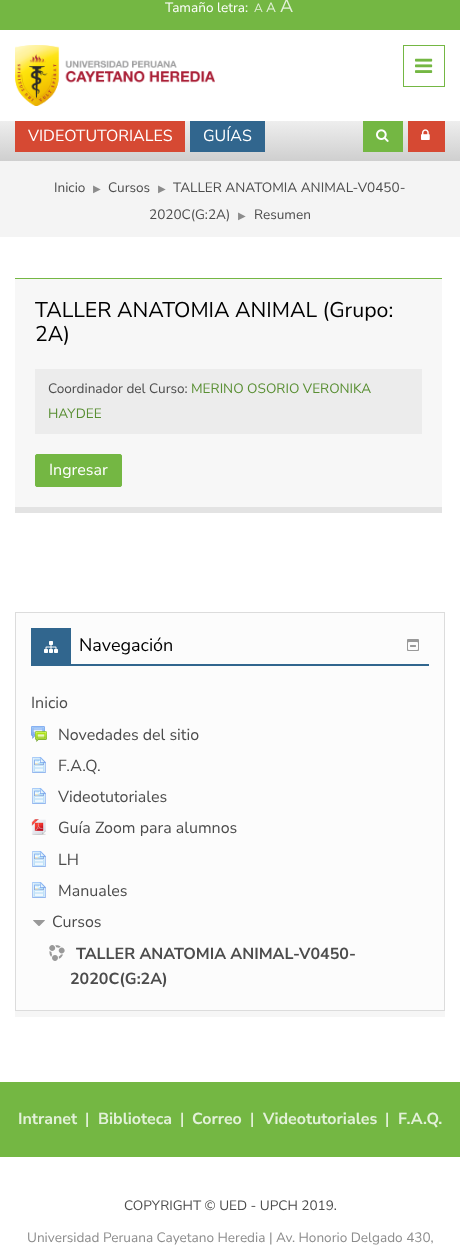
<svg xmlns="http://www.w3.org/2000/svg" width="460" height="1250">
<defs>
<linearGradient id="g1" gradientUnits="userSpaceOnUse" x1="230" y1="121" x2="230" y2="161"><stop offset="0" stop-color="#eee"/><stop offset="1" stop-color="#cfcfcf"/></linearGradient>
</defs>
<rect width="100%" height="100%" fill="#fff"/>
<rect width="460" height="30" fill="#74b743"/>
<text x="165" y="12" style="font-family:Nunito Sans;font-size:13.6px;fill:#fff">Tamaño letra:</text>
<text x="254" y="12" style="font-family:Nunito Sans;font-size:12px;fill:#e3f1d9">A</text>
<text x="266" y="12" style="font-family:Nunito Sans;font-size:13.6px;fill:#e3f1d9">A</text>
<text x="280" y="12" style="font-family:Nunito Sans;font-size:18px;fill:#e3f1d9">A</text>
<image x="15" y="45" width="200" height="61" href="media/1.png"/>
<rect x="403.5" y="45.5" width="41" height="41" fill="none" stroke="#74b743"/>
<image x="415" y="58" width="18" height="15" href="media/2.png"/>
<rect y="121" width="460" height="40" fill="url(#g1)"/>
<rect x="15" y="121" width="170" height="31" fill="#d64933"/>
<text x="28" y="141" style="font-family:Nunito Sans;font-size:16px;fill:#fff">VIDEOTUTORIALES</text>
<rect x="190" y="121" width="75" height="31" fill="#31668e"/>
<text x="203" y="141" style="font-family:Nunito Sans;font-size:16px;fill:#fff">GUÍAS</text>
<rect x="363" y="121" width="40" height="31" fill="#74b743"/>
<image x="376" y="129" width="13" height="13" href="media/3.png"/>
<rect x="408" y="121" width="37" height="31" fill="#d64933"/>
<image x="421" y="129" width="9" height="11" href="media/4.png"/>
<rect y="161" width="460" height="76" fill="#f4f4f4"/>
<text x="54" y="192" style="font-family:Nunito Sans;font-size:13.6px;fill:#4c4c4c">Inicio</text>
<text x="93" y="192" style="font-family:DejaVu Sans;font-size:10px;fill:#8c8c8c">▶︎</text>
<text x="108" y="192" style="font-family:Nunito Sans;font-size:13.6px;fill:#4c4c4c">Cursos</text>
<text x="158" y="192" style="font-family:DejaVu Sans;font-size:10px;fill:#8c8c8c">▶︎</text>
<text x="173" y="192" style="font-family:Nunito Sans;font-size:13.6px;fill:#4c4c4c">TALLER ANATOMIA ANIMAL-V0450-</text>
<text x="149" y="219" style="font-family:Nunito Sans;font-size:13.6px;fill:#4c4c4c">2020C(G:2A)</text>
<text x="238" y="219" style="font-family:DejaVu Sans;font-size:10px;fill:#8c8c8c">▶︎</text>
<text x="254" y="219" style="font-family:Nunito Sans;font-size:13.6px;fill:#4c4c4c">Resumen</text>
<rect x="15" y="507" width="427" height="6" fill="#e3e3e3"/>
<rect x="15" y="279" width="427" height="228" fill="#f7f7f7"/>
<rect x="15" y="278" width="427" height="1" fill="#74b743"/>
<text x="35" y="317" style="font-family:Nunito Sans;font-size:21.3px;fill:#000">TALLER ANATOMIA ANIMAL (Grupo:</text>
<text x="35" y="341" style="font-family:Nunito Sans;font-size:21.3px;fill:#000">2A)</text>
<rect x="35" y="369" width="387" height="65" fill="#ececec"/>
<text x="48" y="393" style="font-family:Nunito Sans;font-size:13.6px;fill:#4c4c4c">Coordinador del Curso:</text>
<text x="191" y="393" style="font-family:Nunito Sans;font-size:13.6px;fill:#598f33">MERINO OSORIO VERONIKA</text>
<text x="48" y="418" style="font-family:Nunito Sans;font-size:13.6px;fill:#598f33">HAYDEE</text>
<rect x="35.5" y="454.5" width="86" height="32" rx="1.5" fill="#74b743" stroke="#74b743"/>
<text x="49" y="475" style="font-family:Nunito Sans;font-size:16px;fill:#fff">Ingresar</text>
<rect x="15" y="1011" width="430" height="6" fill="#f6f6f6"/>
<rect x="15.5" y="612.5" width="429" height="398" fill="#fcfcfc" stroke="#dcdcdc"/>
<rect x="31" y="664" width="398" height="2" fill="#31668e"/>
<rect x="31" y="628" width="40" height="36" fill="#31668e"/>
<image x="44" y="641" width="14" height="12" href="media/5.png"/>
<text x="79" y="651" style="font-family:Nunito Sans;font-size:18px;fill:#000">Navegación</text>
<image x="407" y="639" width="12" height="12" href="media/6.png"/>
<text x="31" y="708" style="font-family:Nunito Sans;font-size:16px;fill:#4c4c4c">Inicio</text>
<image x="31" y="726" width="16" height="16" href="media/7.png"/>
<text x="58" y="740" style="font-family:Nunito Sans;font-size:16px;fill:#4c4c4c">Novedades del sitio</text>
<image x="32" y="757" width="14" height="16" href="media/8.png"/>
<text x="58" y="771" style="font-family:Nunito Sans;font-size:16px;fill:#4c4c4c">F.A.Q.</text>
<image x="32" y="788" width="14" height="16" href="media/9.png"/>
<text x="58" y="802" style="font-family:Nunito Sans;font-size:16px;fill:#4c4c4c">Videotutoriales</text>
<image x="31" y="819" width="15" height="16" href="media/10.png"/>
<text x="58" y="833" style="font-family:Nunito Sans;font-size:16px;fill:#4c4c4c">Guía Zoom para alumnos</text>
<image x="32" y="851" width="14" height="16" href="media/11.png"/>
<text x="58" y="865" style="font-family:Nunito Sans;font-size:16px;fill:#4c4c4c">LH</text>
<image x="32" y="882" width="14" height="16" href="media/12.png"/>
<text x="58" y="896" style="font-family:Nunito Sans;font-size:16px;fill:#4c4c4c">Manuales</text>
<image x="33" y="920" width="12" height="6" href="media/13.png"/>
<text x="52" y="927" style="font-family:Nunito Sans;font-size:16px;fill:#4c4c4c">Cursos</text>
<image x="49" y="945" width="16" height="16" href="media/14.png"/>
<text x="76" y="959" style="font-family:Nunito Sans;font-size:16px;font-weight:bold;fill:#4c4c4c">TALLER ANATOMIA ANIMAL-V0450-</text>
<text x="70" y="984" style="font-family:Nunito Sans;font-size:16px;font-weight:bold;fill:#4c4c4c">2020C(G:2A)</text>
<rect y="1082" width="460" height="75" fill="#74b743"/>
<text x="18" y="1124" style="font-family:Nunito Sans;font-size:16px;font-weight:bold;fill:#e3f1d9">Intranet</text>
<text x="85" y="1124" style="font-family:Nunito Sans;font-size:16px;fill:#fff">|</text>
<text x="98" y="1124" style="font-family:Nunito Sans;font-size:16px;font-weight:bold;fill:#e3f1d9">Biblioteca</text>
<text x="180" y="1124" style="font-family:Nunito Sans;font-size:16px;fill:#fff">|</text>
<text x="192" y="1124" style="font-family:Nunito Sans;font-size:16px;font-weight:bold;fill:#e3f1d9">Correo</text>
<text x="250" y="1124" style="font-family:Nunito Sans;font-size:16px;fill:#fff">|</text>
<text x="263" y="1124" style="font-family:Nunito Sans;font-size:16px;font-weight:bold;fill:#e3f1d9">Videotutoriales</text>
<text x="385" y="1124" style="font-family:Nunito Sans;font-size:16px;fill:#fff">|</text>
<text x="398" y="1124" style="font-family:Nunito Sans;font-size:16px;font-weight:bold;fill:#e3f1d9">F.A.Q.</text>
<text x="124" y="1210" style="font-family:Nunito Sans;font-size:13.6px;fill:#4c4c4c">COPYRIGHT © UED - UPCH 2019.</text>
<text x="27" y="1242" style="font-family:Nunito Sans;font-size:13.6px;fill:#8c8c8c">Universidad Peruana Cayetano Heredia | Av. Honorio Delgado 430,</text>
</svg>
